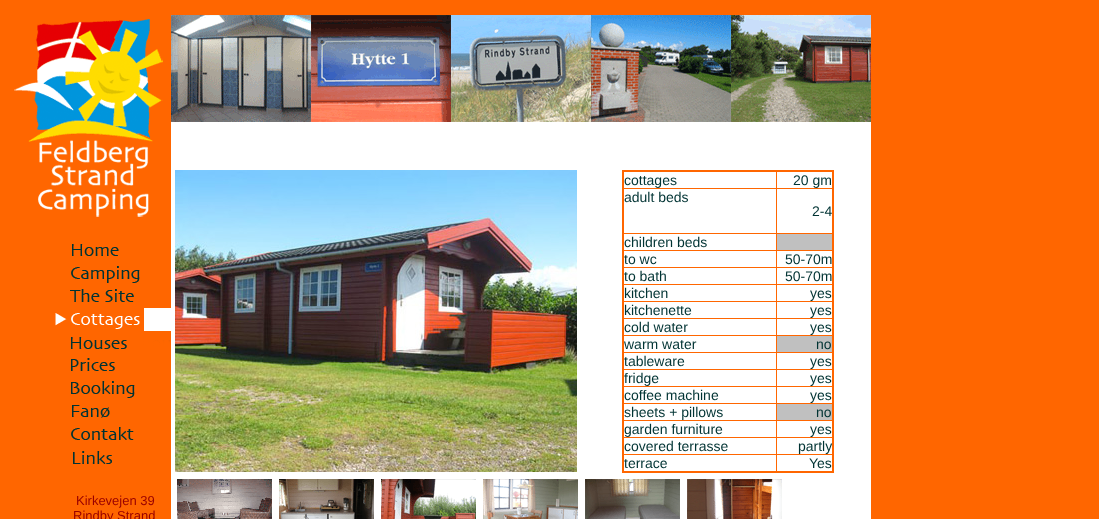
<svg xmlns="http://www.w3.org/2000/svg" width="1099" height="519">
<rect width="100%" height="100%" fill="#f60"/>
<image x="14" y="19" width="149" height="198" href="media/1.png"/>
<image x="171" y="15" width="140" height="107" href="media/2.png"/>
<image x="311" y="15" width="140" height="107" href="media/3.png"/>
<image x="451" y="15" width="140" height="107" href="media/4.png"/>
<image x="591" y="15" width="140" height="107" href="media/5.png"/>
<image x="731" y="15" width="140" height="107" href="media/6.png"/>
<rect x="171" y="122" width="700" height="397" fill="#fff"/>
<image x="175" y="170" width="402" height="302" href="media/7.png"/>
<rect x="776" y="188" width="58" height="1" fill="#f60"/>
<rect x="776" y="233" width="58" height="1" fill="#f60"/>
<rect x="776" y="250" width="58" height="1" fill="#f60"/>
<rect x="776" y="267" width="58" height="1" fill="#f60"/>
<rect x="776" y="284" width="58" height="1" fill="#f60"/>
<rect x="776" y="301" width="58" height="1" fill="#f60"/>
<rect x="776" y="318" width="58" height="1" fill="#f60"/>
<rect x="776" y="335" width="58" height="1" fill="#f60"/>
<rect x="776" y="352" width="58" height="1" fill="#f60"/>
<rect x="776" y="369" width="58" height="1" fill="#f60"/>
<rect x="776" y="386" width="58" height="1" fill="#f60"/>
<rect x="776" y="403" width="58" height="1" fill="#f60"/>
<rect x="776" y="420" width="58" height="1" fill="#f60"/>
<rect x="776" y="437" width="58" height="1" fill="#f60"/>
<rect x="776" y="454" width="58" height="1" fill="#f60"/>
<rect x="776" y="454" width="1" height="19" fill="#f60"/>
<rect x="623" y="454" width="154" height="1" fill="#f60"/>
<rect x="776" y="437" width="1" height="18" fill="#f60"/>
<rect x="623" y="437" width="154" height="1" fill="#f60"/>
<rect x="776" y="420" width="1" height="18" fill="#f60"/>
<rect x="623" y="420" width="154" height="1" fill="#f60"/>
<rect x="776" y="403" width="1" height="18" fill="#f60"/>
<rect x="623" y="403" width="154" height="1" fill="#f60"/>
<rect x="776" y="386" width="1" height="18" fill="#f60"/>
<rect x="623" y="386" width="154" height="1" fill="#f60"/>
<rect x="776" y="369" width="1" height="18" fill="#f60"/>
<rect x="623" y="369" width="154" height="1" fill="#f60"/>
<rect x="776" y="352" width="1" height="18" fill="#f60"/>
<rect x="623" y="352" width="154" height="1" fill="#f60"/>
<rect x="776" y="335" width="1" height="18" fill="#f60"/>
<rect x="623" y="335" width="154" height="1" fill="#f60"/>
<rect x="776" y="318" width="1" height="18" fill="#f60"/>
<rect x="623" y="318" width="154" height="1" fill="#f60"/>
<rect x="776" y="301" width="1" height="18" fill="#f60"/>
<rect x="623" y="301" width="154" height="1" fill="#f60"/>
<rect x="776" y="284" width="1" height="18" fill="#f60"/>
<rect x="623" y="284" width="154" height="1" fill="#f60"/>
<rect x="776" y="267" width="1" height="18" fill="#f60"/>
<rect x="623" y="267" width="154" height="1" fill="#f60"/>
<rect x="776" y="250" width="1" height="18" fill="#f60"/>
<rect x="623" y="250" width="154" height="1" fill="#f60"/>
<rect x="776" y="233" width="1" height="18" fill="#f60"/>
<rect x="623" y="233" width="154" height="1" fill="#f60"/>
<rect x="776" y="188" width="1" height="46" fill="#f60"/>
<rect x="623" y="188" width="154" height="1" fill="#f60"/>
<rect x="776" y="171" width="1" height="18" fill="#f60"/>
<rect x="622" y="170" width="212" height="2" fill="#f60"/>
<rect x="832" y="170" width="2" height="303" fill="#f60"/>
<rect x="622" y="471" width="212" height="2" fill="#f60"/>
<rect x="622" y="170" width="2" height="303" fill="#f60"/>
<text x="624" y="185" style="font-family:Liberation Sans;font-size:14px;fill:#033">cottages</text>
<text x="793" y="185" style="font-family:Liberation Sans;font-size:14px;fill:#033">20 gm</text>
<text x="624" y="202" style="font-family:Liberation Sans;font-size:14px;fill:#033">adult beds</text>
<text x="812" y="216" style="font-family:Liberation Sans;font-size:14px;fill:#033">2-4</text>
<text x="624" y="247" style="font-family:Liberation Sans;font-size:14px;fill:#033">children beds</text>
<rect x="777" y="234" width="55" height="16" fill="#c0c0c0"/>
<text x="624" y="264" style="font-family:Liberation Sans;font-size:14px;fill:#033">to wc</text>
<text x="785" y="264" style="font-family:Liberation Sans;font-size:14px;fill:#033">50-70m</text>
<text x="624" y="281" style="font-family:Liberation Sans;font-size:14px;fill:#033">to bath</text>
<text x="785" y="281" style="font-family:Liberation Sans;font-size:14px;fill:#033">50-70m</text>
<text x="624" y="298" style="font-family:Liberation Sans;font-size:14px;fill:#033">kitchen</text>
<text x="810" y="298" style="font-family:Liberation Sans;font-size:14px;fill:#033">yes</text>
<text x="624" y="315" style="font-family:Liberation Sans;font-size:14px;fill:#033">kitchenette</text>
<text x="810" y="315" style="font-family:Liberation Sans;font-size:14px;fill:#033">yes</text>
<text x="624" y="332" style="font-family:Liberation Sans;font-size:14px;fill:#033">cold water</text>
<text x="810" y="332" style="font-family:Liberation Sans;font-size:14px;fill:#033">yes</text>
<text x="624" y="349" style="font-family:Liberation Sans;font-size:14px;fill:#033">warm water</text>
<rect x="777" y="336" width="55" height="16" fill="#c0c0c0"/>
<text x="816" y="349" style="font-family:Liberation Sans;font-size:14px;fill:#033">no</text>
<text x="624" y="366" style="font-family:Liberation Sans;font-size:14px;fill:#033">tableware</text>
<text x="810" y="366" style="font-family:Liberation Sans;font-size:14px;fill:#033">yes</text>
<text x="624" y="383" style="font-family:Liberation Sans;font-size:14px;fill:#033">fridge</text>
<text x="810" y="383" style="font-family:Liberation Sans;font-size:14px;fill:#033">yes</text>
<text x="624" y="400" style="font-family:Liberation Sans;font-size:14px;fill:#033">coffee machine</text>
<text x="810" y="400" style="font-family:Liberation Sans;font-size:14px;fill:#033">yes</text>
<text x="624" y="417" style="font-family:Liberation Sans;font-size:14px;fill:#033">sheets + pillows</text>
<rect x="777" y="404" width="55" height="16" fill="#c0c0c0"/>
<text x="816" y="417" style="font-family:Liberation Sans;font-size:14px;fill:#033">no</text>
<text x="624" y="434" style="font-family:Liberation Sans;font-size:14px;fill:#033">garden furniture</text>
<text x="810" y="434" style="font-family:Liberation Sans;font-size:14px;fill:#033">yes</text>
<text x="624" y="451" style="font-family:Liberation Sans;font-size:14px;fill:#033">covered terrasse</text>
<text x="798" y="451" style="font-family:Liberation Sans;font-size:14px;fill:#033">partly</text>
<text x="624" y="468" style="font-family:Liberation Sans;font-size:14px;fill:#033">terrace</text>
<text x="809" y="468" style="font-family:Liberation Sans;font-size:14px;fill:#033">Yes</text>
<image x="177" y="479" width="95" height="40" href="media/8.png"/>
<image x="279" y="479" width="95" height="40" href="media/9.png"/>
<image x="381" y="479" width="95" height="40" href="media/10.png"/>
<image x="483" y="479" width="95" height="40" href="media/11.png"/>
<image x="585" y="479" width="95" height="40" href="media/12.png"/>
<image x="687" y="479" width="95" height="40" href="media/13.png"/>
<image x="72" y="244" width="47" height="12" href="media/14.png"/>
<image x="71" y="266" width="69" height="17" href="media/15.png"/>
<image x="70" y="289" width="64" height="13" href="media/16.png"/>
<image x="55" y="308" width="116" height="23" href="media/17.png"/>
<image x="71" y="337" width="99" height="12" href="media/18.png"/>
<image x="71" y="358" width="44" height="13" href="media/19.png"/>
<image x="71" y="381" width="64" height="17" href="media/20.png"/>
<image x="72" y="405" width="38" height="13" href="media/21.png"/>
<image x="71" y="427" width="63" height="13" href="media/22.png"/>
<image x="73" y="451" width="39" height="13" href="media/23.png"/>
<text x="76" y="505" style="font-family:Liberation Sans;font-size:13px;fill:#900">Kirkevejen 39</text>
<text x="73" y="520" style="font-family:Liberation Sans;font-size:13px;fill:#900">Rindby Strand</text>
</svg>
